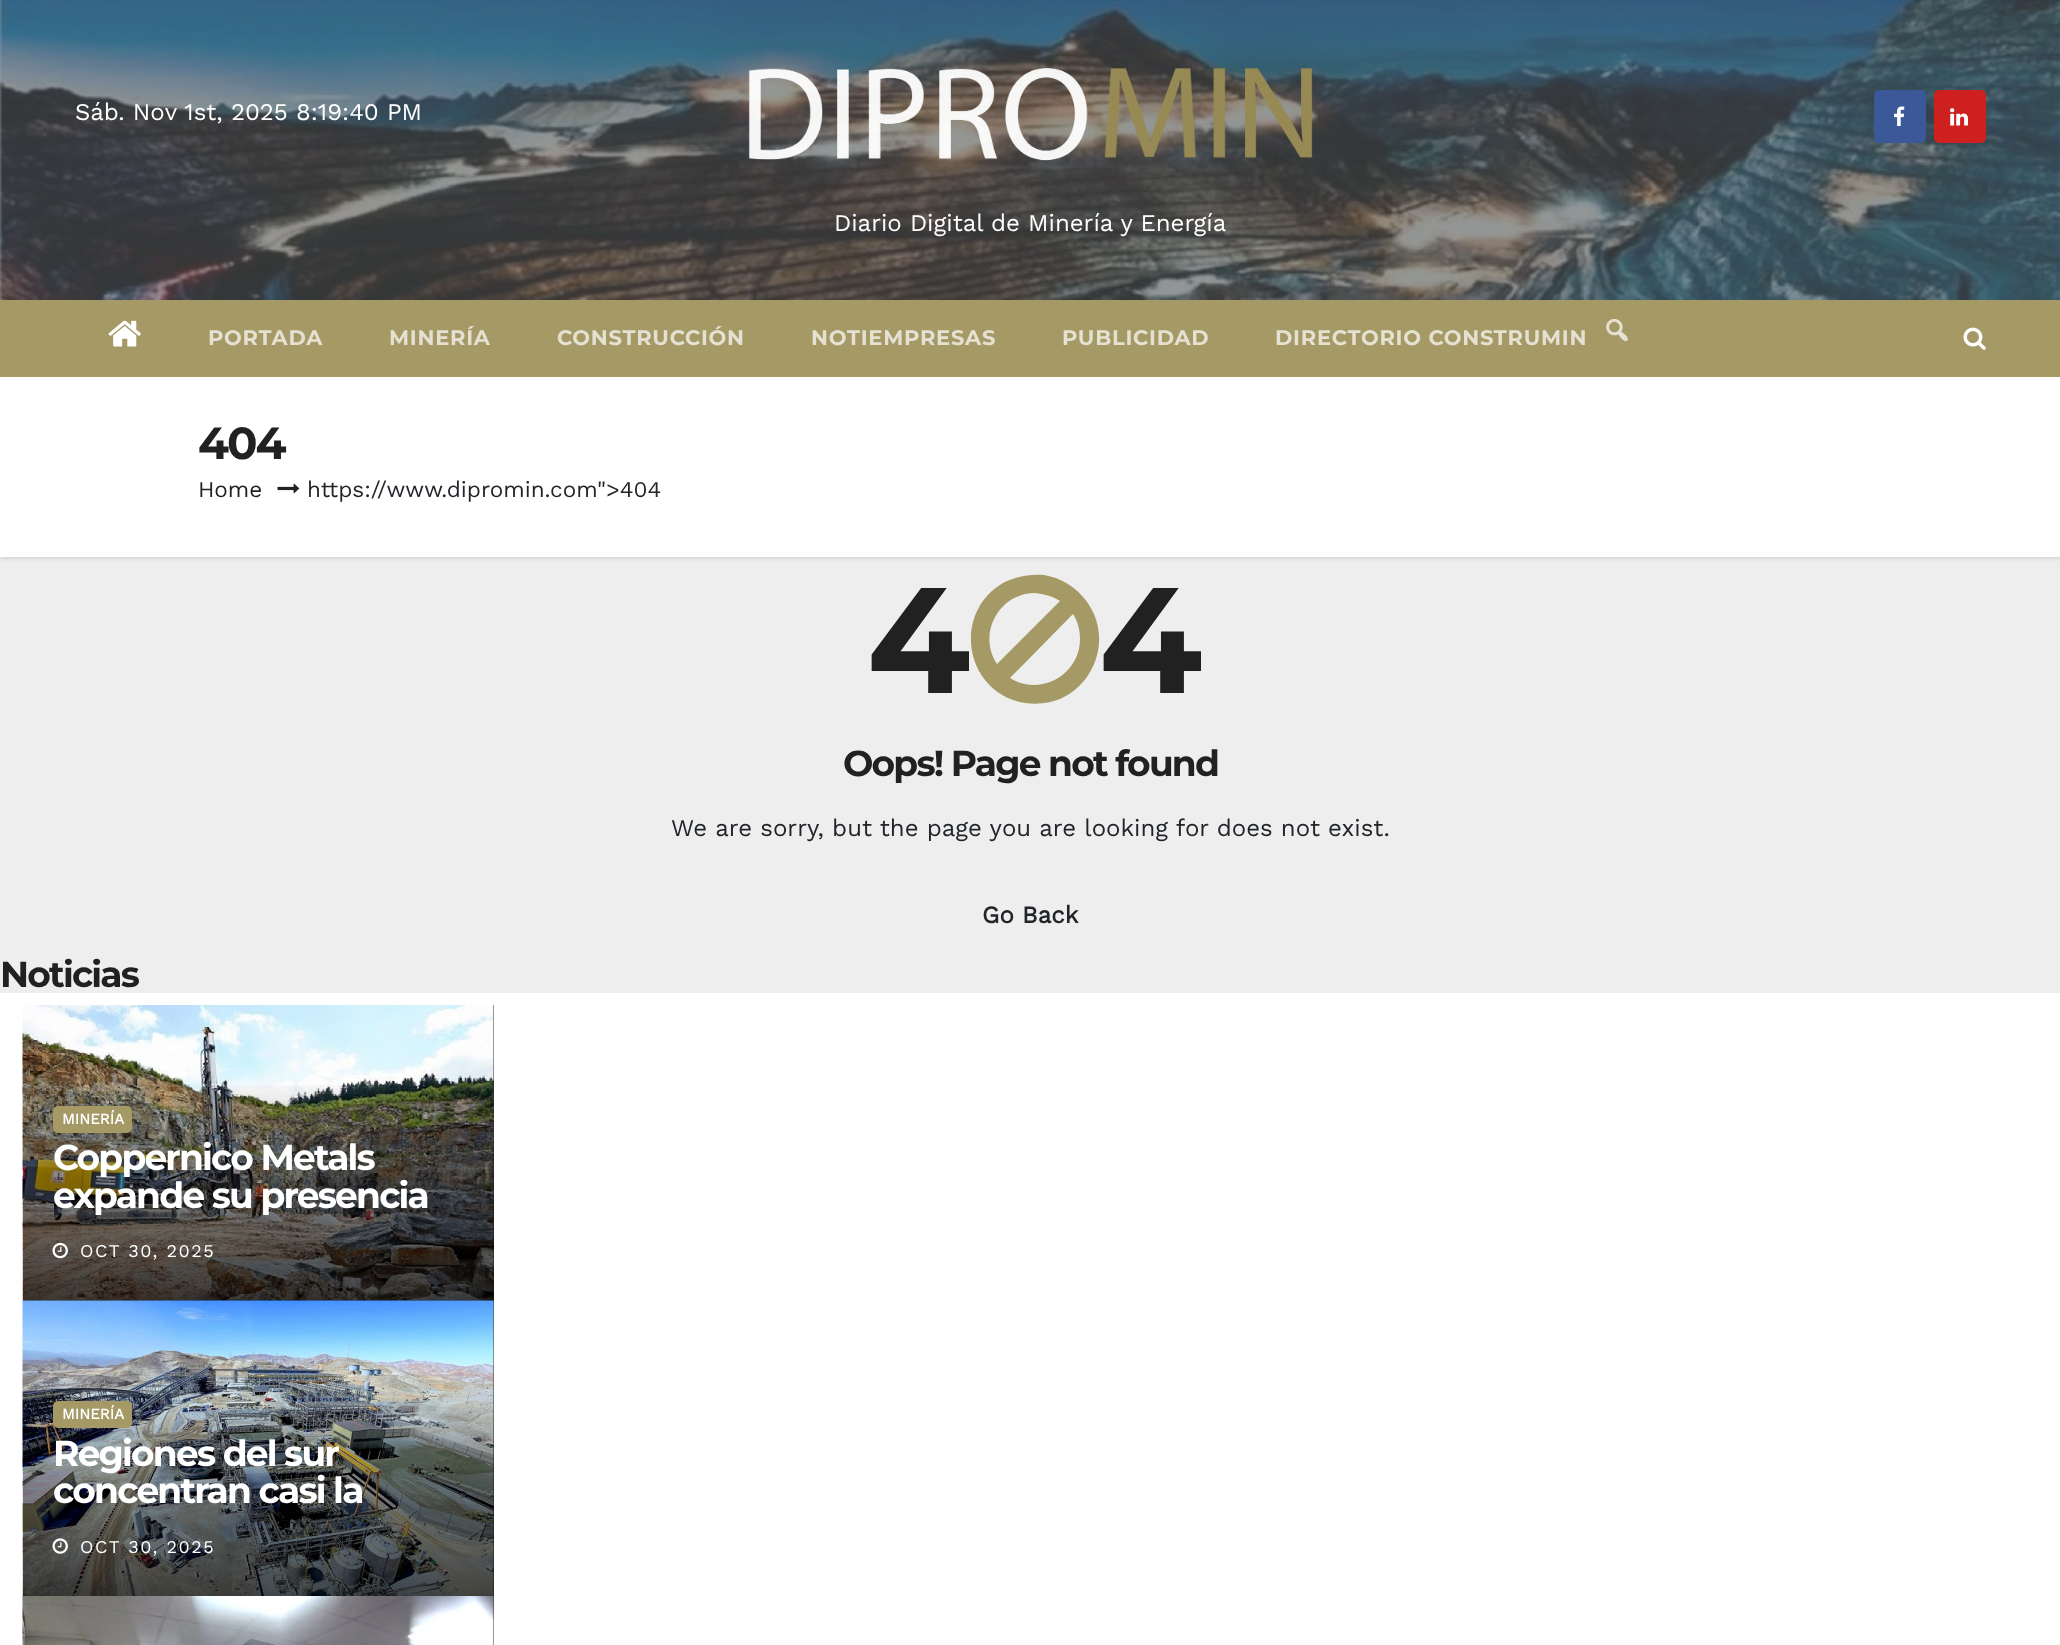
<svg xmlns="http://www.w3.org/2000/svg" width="2060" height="1645">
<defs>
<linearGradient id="g1" gradientUnits="userSpaceOnUse" x1="258" y1="1079" x2="258" y2="1301"><stop offset="0" stop-color="#000" stop-opacity="0"/><stop offset="0.5" stop-color="#000" stop-opacity="0.4"/><stop offset="1" stop-color="#000" stop-opacity="0.7"/></linearGradient>
<linearGradient id="g2" gradientUnits="userSpaceOnUse" x1="258" y1="1374" x2="258" y2="1596"><stop offset="0" stop-color="#000" stop-opacity="0"/><stop offset="0.5" stop-color="#000" stop-opacity="0.4"/><stop offset="1" stop-color="#000" stop-opacity="0.7"/></linearGradient>
</defs>
<rect width="100%" height="100%" fill="#fff"/>
<rect y="557" width="2060" height="436" fill="#eee"/>
<image x="0" y="0" width="2060" height="300" href="media/1.png"/>
<text x="75" y="120" style="font-family:Work Sans;font-size:24px;fill:#fff">Sáb. Nov 1st, 2025 8:19:40 PM</text>
<rect x="1874" y="90" width="52" height="53" rx="5" fill="#3b5998"/>
<image x="1894" y="106" width="11" height="20" href="media/2.png"/>
<rect x="1934" y="90" width="52" height="53" rx="5" fill="#cd201f"/>
<image x="1950" y="108" width="18" height="18" href="media/3.png"/>
<image x="748" y="68" width="565" height="93" href="media/4.png"/>
<text x="834" y="231" style="font-family:Work Sans;font-size:24px;fill:#fff">Diario Digital de Minería y Energía</text>
<rect y="378" width="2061" height="180" fill="#00000026" filter="blur(2px)"/>
<rect y="300" width="2060" height="77" fill="#a59965"/>
<image x="108" y="320" width="33" height="27" href="media/5.png"/>
<text x="208" y="345" style="font-family:Montserrat;font-size:21px;font-weight:bold;letter-spacing:0.75px;fill:#e5e1d2">PORTADA</text>
<text x="389" y="345" style="font-family:Montserrat;font-size:21px;font-weight:bold;letter-spacing:0.75px;fill:#e5e1d2">MINERÍA</text>
<text x="557" y="345" style="font-family:Montserrat;font-size:21px;font-weight:bold;letter-spacing:0.75px;fill:#e5e1d2">CONSTRUCCIÓN</text>
<text x="811" y="345" style="font-family:Montserrat;font-size:21px;font-weight:bold;letter-spacing:0.75px;fill:#e5e1d2">NOTIEMPRESAS</text>
<text x="1062" y="345" style="font-family:Montserrat;font-size:21px;font-weight:bold;letter-spacing:0.75px;fill:#e5e1d2">PUBLICIDAD</text>
<text x="1275" y="345" style="font-family:Montserrat;font-size:21px;font-weight:bold;letter-spacing:0.75px;fill:#e5e1d2">DIRECTORIO CONSTRUMIN</text>
<image x="1606" y="318" width="22" height="24" href="media/6.png"/>
<image x="1963" y="327" width="23" height="23" href="media/7.png"/>
<rect y="377" width="2060" height="180" fill="#fff"/>
<text x="198" y="459" style="font-family:Montserrat;font-size:45px;font-weight:bold;letter-spacing:-2px;fill:#212121">404</text>
<text x="198" y="497" style="font-family:Work Sans;font-size:22.5px;fill:#212121">Home</text>
<image x="277" y="483" width="23" height="11" href="media/8.png"/>
<text x="307" y="497" style="font-family:Work Sans;font-size:22.5px;fill:#212529">https://www.dipromin.com"&gt;404</text>
<text x="867" y="693" style="font-family:Montserrat;font-size:150px;font-weight:bold;letter-spacing:-8px;fill:#212121">4</text>
<path d="M1080 639c0-9-2-17-7-25l-63 64c30 19 70-3 70-39zm-83 25l63-63c-8-5-16-7-25-8c-36 0-58 41-38 71zm97-50c14 33-2 71-34 85c-15 6-32 6-47 1c-53-20-57-94-6-119c12-5 25-7 37-6c23 4 41 19 50 39z" fill="#a59965"/>
<text x="1099" y="693" style="font-family:Montserrat;font-size:150px;font-weight:bold;letter-spacing:-8px;fill:#212121">4</text>
<text x="843" y="776" style="font-family:Montserrat;font-size:36px;font-weight:bold;letter-spacing:-1.8px;fill:#212121">Oops! Page not found</text>
<text x="671" y="836" style="font-family:Work Sans;font-size:24px;fill:#212529">We are sorry, but the page you are looking for does not exist.</text>
<text x="982" y="923" style="font-family:Work Sans;font-size:24px;font-weight:bold;fill:#212529">Go Back</text>
<text x="0" y="987" style="font-family:Montserrat;font-size:36px;font-weight:bold;letter-spacing:-1.8px;fill:#212121">Noticias</text>
<rect x="23" y="1005" width="471" height="296" fill="#333"/>
<image x="22" y="1005" width="472" height="296" href="media/9.png"/>
<rect x="23" y="1085" width="471" height="216" fill="url(#g1)"/>
<rect x="53" y="1106" width="79" height="27" rx="5" fill="#a59965"/>
<text x="62" y="1124" style="font-family:Work Sans;font-size:15px;font-weight:bold;fill:#fff">MINERÍA</text>
<text x="53" y="1170" style="font-family:Montserrat;font-size:36px;font-weight:bold;letter-spacing:-1.8px;fill:#fff">Coppernico Metals</text>
<text x="53" y="1208" style="font-family:Montserrat;font-size:36px;font-weight:bold;letter-spacing:-1.8px;fill:#fff">expande su presencia</text>
<image x="52" y="1242" width="16" height="17" href="media/10.png"/>
<text x="80" y="1257" style="font-family:Work Sans;font-size:18px;letter-spacing:1.5px;fill:#fff">OCT 30, 2025</text>
<rect x="493" y="1301" width="1" height="344" fill="#333"/>
<image x="22" y="1300" width="472" height="296" href="media/11.png"/>
<rect x="23" y="1380" width="471" height="216" fill="url(#g2)"/>
<rect x="53" y="1401" width="79" height="27" rx="5" fill="#a59965"/>
<text x="62" y="1419" style="font-family:Work Sans;font-size:15px;font-weight:bold;fill:#fff">MINERÍA</text>
<text x="53" y="1466" style="font-family:Montserrat;font-size:36px;font-weight:bold;letter-spacing:-1.8px;fill:#fff">Regiones del sur</text>
<text x="53" y="1503" style="font-family:Montserrat;font-size:36px;font-weight:bold;letter-spacing:-1.8px;fill:#fff">concentran casi la</text>
<image x="52" y="1538" width="16" height="16" href="media/12.png"/>
<text x="80" y="1553" style="font-family:Work Sans;font-size:18px;letter-spacing:1.5px;fill:#fff">OCT 30, 2025</text>
<image x="22" y="1596" width="472" height="49" href="media/13.png"/>
</svg>
